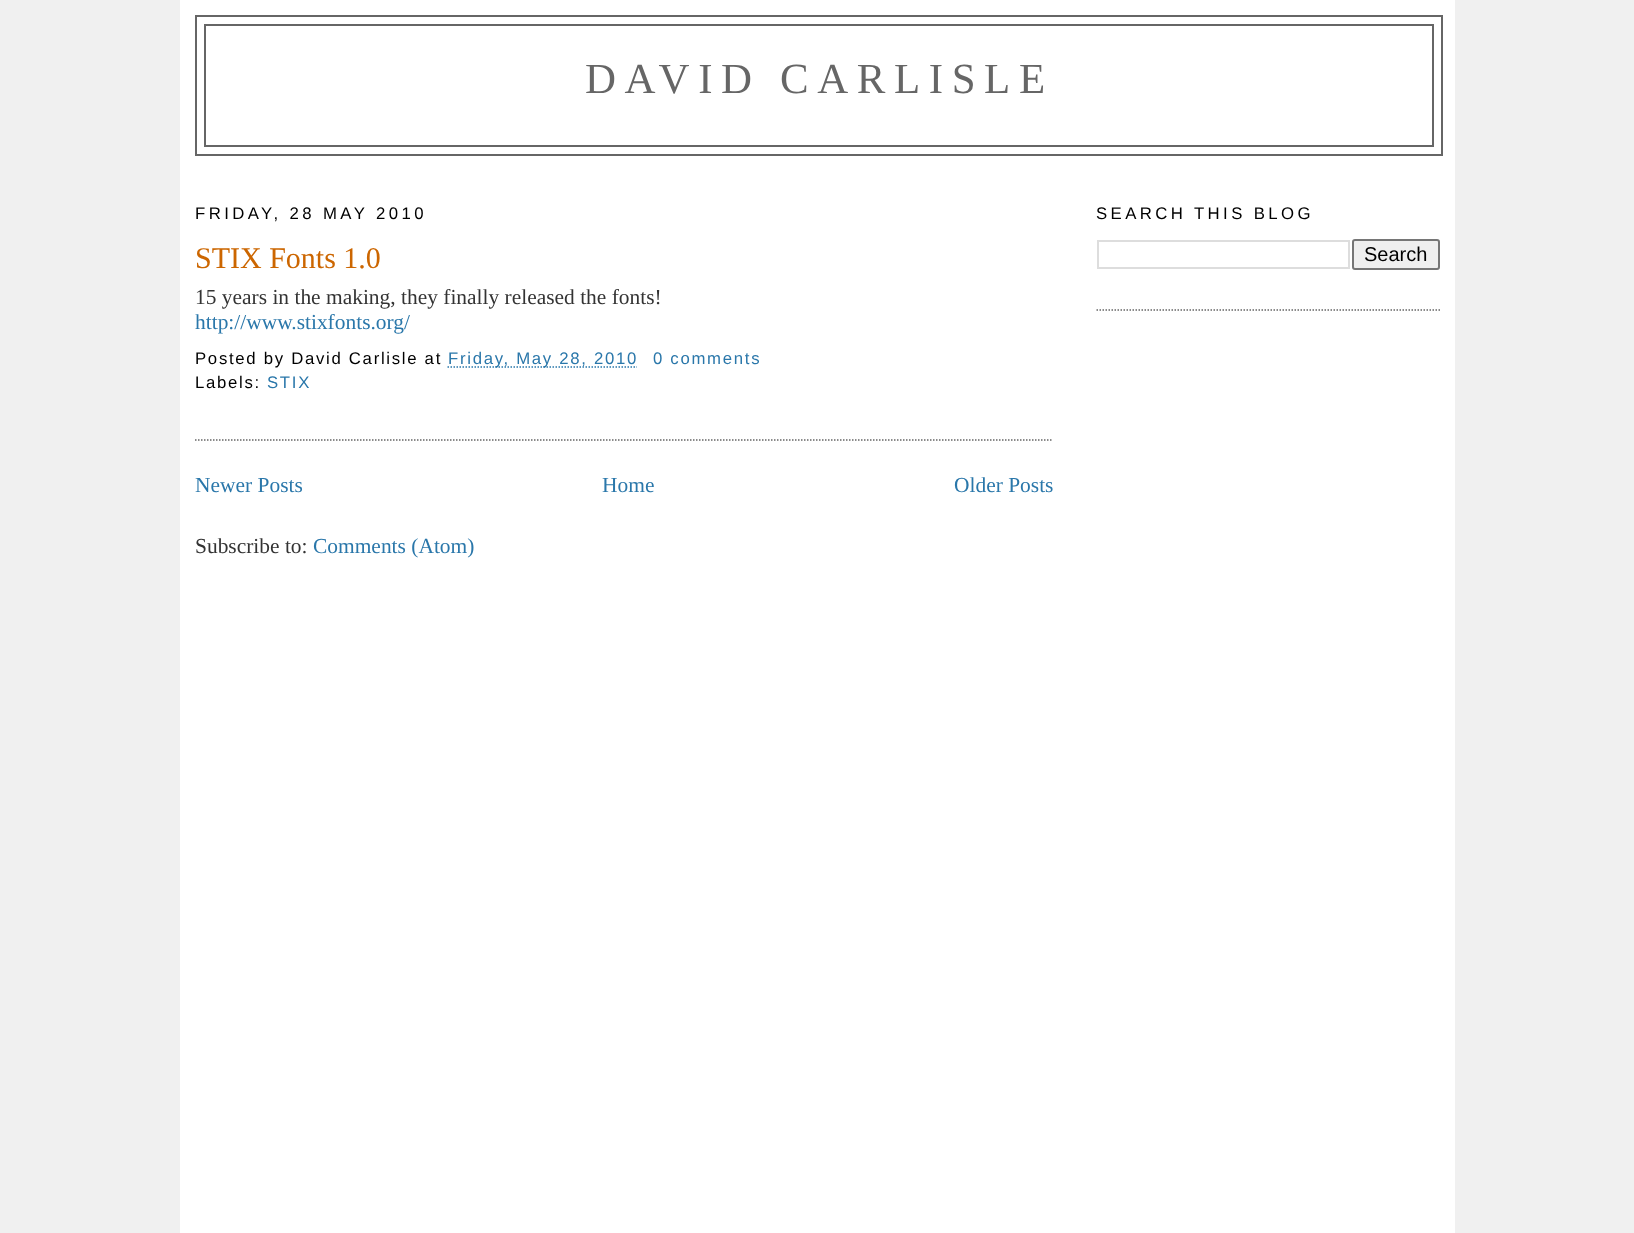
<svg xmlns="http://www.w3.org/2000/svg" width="1634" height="1233">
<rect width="100%" height="100%" fill="#f0f0f0"/>
<rect x="180" width="1275" height="1233" fill="#fff"/>
<rect x="196" y="16" width="1246" height="139" fill="none" stroke="#666" stroke-width="2"/>
<rect x="205" y="25" width="1228" height="121" fill="none" stroke="#666" stroke-width="2"/>
<text x="585" y="93" style="font-family:Liberation Serif;font-size:42.9px;letter-spacing:8.6px;fill:#666">DAVID CARLISLE</text>
<text x="195" y="219" style="font-family:Liberation Sans;font-size:16.75px;letter-spacing:3.4px;fill:#000">FRIDAY, 28 MAY 2010</text>
<path d="M195 440h858" fill="none" stroke="#666" stroke-width="1.5" stroke-dasharray="1.5 1.5"/>
<text x="195" y="268" style="font-family:Liberation Serif;font-size:30px;fill:#c60">STIX Fonts 1.0</text>
<text x="195" y="304" style="font-family:Liberation Serif;font-size:21.45px;fill:#333">15 years in the making, they finally released the fonts!</text>
<text x="195" y="329" style="font-family:Liberation Serif;font-size:21.45px;fill:#2a77aa">http://www.stixfonts.org/</text>
<text x="195" y="364" style="font-family:Liberation Sans;font-size:16.75px;letter-spacing:1.7px;fill:#000">Posted by David Carlisle at</text>
<path d="M447.5 367h189.5" fill="none" stroke="#2a77aa" stroke-width="1.5" stroke-dasharray="1.5 1.5"/>
<text x="448" y="364" style="font-family:Liberation Sans;font-size:16.75px;letter-spacing:1.7px;fill:#2a77aa">Friday, May 28, 2010</text>
<text x="653" y="364" style="font-family:Liberation Sans;font-size:16.75px;letter-spacing:1.7px;fill:#2a77aa">0 comments</text>
<text x="195" y="388" style="font-family:Liberation Sans;font-size:16.75px;letter-spacing:1.7px;fill:#000">Labels:</text>
<text x="267" y="388" style="font-family:Liberation Sans;font-size:16.75px;letter-spacing:1.7px;fill:#2a77aa">STIX</text>
<text x="195" y="492" style="font-family:Liberation Serif;font-size:21.45px;fill:#2a77aa">Newer Posts</text>
<text x="602" y="492" style="font-family:Liberation Serif;font-size:21.45px;fill:#2a77aa">Home</text>
<text x="954" y="492" style="font-family:Liberation Serif;font-size:21.45px;fill:#2a77aa">Older Posts</text>
<text x="195" y="553" style="font-family:Liberation Serif;font-size:21.45px;fill:#333">Subscribe to:</text>
<text x="313" y="553" style="font-family:Liberation Serif;font-size:21.45px;fill:#2a77aa">Comments (Atom)</text>
<path d="M1096.5 310h343.5" fill="none" stroke="#666" stroke-width="1.5" stroke-dasharray="1.5 1.5"/>
<text x="1096" y="219" style="font-family:Liberation Sans;font-size:16.75px;letter-spacing:3.4px;fill:#000">SEARCH THIS BLOG</text>
<rect x="1098" y="241" width="251" height="27" fill="none" stroke="#ddd" stroke-width="2"/>
<rect x="1353" y="240" width="86" height="29" rx="2" fill="#efefef" stroke="#767676" stroke-width="2"/>
<text x="1364" y="261" style="font-family:Liberation Sans;font-size:20px;fill:#000">Search</text>
</svg>
